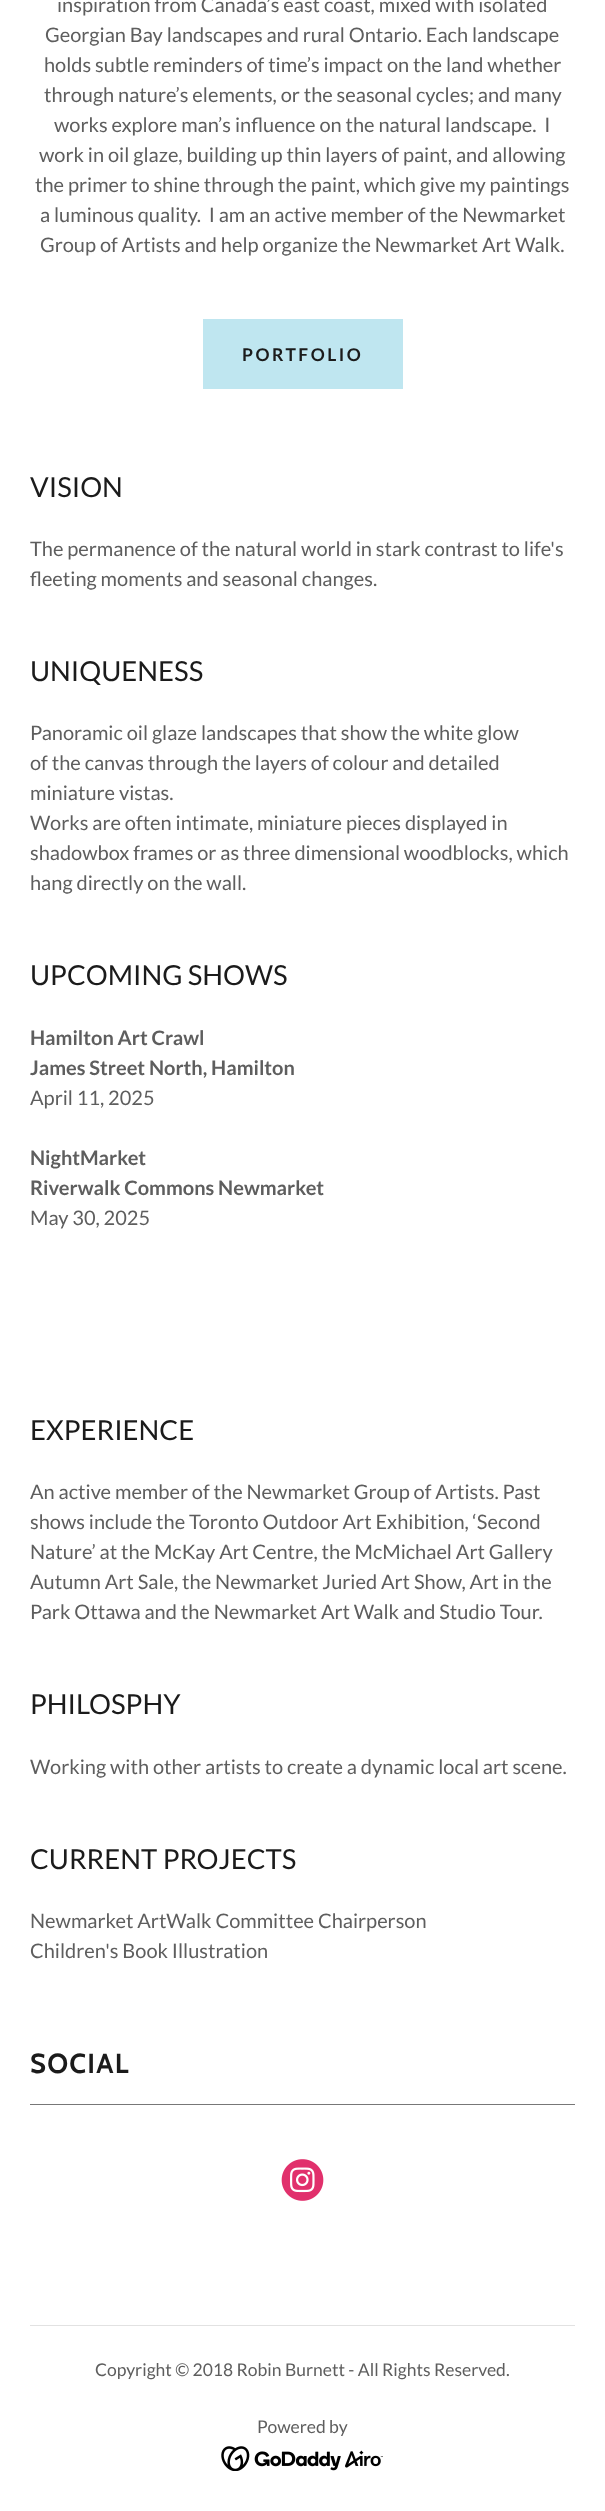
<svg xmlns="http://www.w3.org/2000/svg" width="605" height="2511">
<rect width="100%" height="100%" fill="#fff"/>
<text x="57" y="12" style="font-family:Lato;font-size:20px;fill:#5e5e5e">inspiration from Canada’s east coast, mixed with isolated</text>
<text x="45" y="42" style="font-family:Lato;font-size:20px;fill:#5e5e5e">Georgian Bay landscapes and rural Ontario. Each landscape</text>
<text x="44" y="72" style="font-family:Lato;font-size:20px;fill:#5e5e5e">holds subtle reminders of time’s impact on the land whether</text>
<text x="44" y="102" style="font-family:Lato;font-size:20px;fill:#5e5e5e">through nature’s elements, or the seasonal cycles; and many</text>
<text x="54" y="132" style="font-family:Lato;font-size:20px;fill:#5e5e5e" xml:space="preserve">works explore man’s influence on the natural landscape.  I</text>
<text x="39" y="162" style="font-family:Lato;font-size:20px;fill:#5e5e5e">work in oil glaze, building up thin layers of paint, and allowing</text>
<text x="35" y="192" style="font-family:Lato;font-size:20px;fill:#5e5e5e">the primer to shine through the paint, which give my paintings</text>
<text x="40" y="222" style="font-family:Lato;font-size:20px;fill:#5e5e5e" xml:space="preserve">a luminous quality.  I am an active member of the Newmarket</text>
<text x="40" y="252" style="font-family:Lato;font-size:20px;fill:#5e5e5e">Group of Artists and help organize the Newmarket Art Walk.</text>
<rect x="203" y="319" width="200" height="70" fill="#bfe6f0"/>
<text x="242" y="361" style="font-family:Lato;font-size:17.5px;font-weight:bold;letter-spacing:2.5px;fill:#1b1b1b">PORTFOLIO</text>
<text x="30" y="497" style="font-family:Lato;font-size:27.5px;fill:#1b1b1b">VISION</text>
<text x="30" y="556" style="font-family:Lato;font-size:20px;fill:#5e5e5e">The permanence of the natural world in stark contrast to life's</text>
<text x="30" y="586" style="font-family:Lato;font-size:20px;fill:#5e5e5e">fleeting moments and seasonal changes.</text>
<text x="30" y="681" style="font-family:Lato;font-size:27.5px;fill:#1b1b1b">UNIQUENESS</text>
<text x="30" y="740" style="font-family:Lato;font-size:20px;fill:#5e5e5e">Panoramic oil glaze landscapes that show the white glow</text>
<text x="30" y="770" style="font-family:Lato;font-size:20px;fill:#5e5e5e">of the canvas through the layers of colour and detailed</text>
<text x="30" y="800" style="font-family:Lato;font-size:20px;fill:#5e5e5e">miniature vistas.</text>
<text x="30" y="830" style="font-family:Lato;font-size:20px;fill:#5e5e5e">Works are often intimate, miniature pieces displayed in</text>
<text x="30" y="860" style="font-family:Lato;font-size:20px;fill:#5e5e5e">shadowbox frames or as three dimensional woodblocks, which</text>
<text x="30" y="890" style="font-family:Lato;font-size:20px;fill:#5e5e5e">hang directly on the wall.</text>
<text x="30" y="985" style="font-family:Lato;font-size:27.5px;fill:#1b1b1b">UPCOMING SHOWS</text>
<text x="30" y="1045" style="font-family:Lato;font-size:20px;font-weight:bold;fill:#5e5e5e">Hamilton Art Crawl</text>
<text x="30" y="1075" style="font-family:Lato;font-size:20px;font-weight:bold;fill:#5e5e5e">James Street North, Hamilton</text>
<text x="30" y="1105" style="font-family:Lato;font-size:20px;fill:#5e5e5e">April 11, 2025</text>
<text x="30" y="1165" style="font-family:Lato;font-size:20px;font-weight:bold;fill:#5e5e5e">NightMarket</text>
<text x="30" y="1195" style="font-family:Lato;font-size:20px;font-weight:bold;fill:#5e5e5e">Riverwalk Commons Newmarket</text>
<text x="30" y="1225" style="font-family:Lato;font-size:20px;fill:#5e5e5e">May 30, 2025</text>
<text x="30" y="1440" style="font-family:Lato;font-size:27.5px;fill:#1b1b1b">EXPERIENCE</text>
<text x="30" y="1499" style="font-family:Lato;font-size:20px;fill:#5e5e5e">An active member of the Newmarket Group of Artists. Past</text>
<text x="30" y="1529" style="font-family:Lato;font-size:20px;fill:#5e5e5e">shows include the Toronto Outdoor Art Exhibition, ‘Second</text>
<text x="30" y="1559" style="font-family:Lato;font-size:20px;fill:#5e5e5e">Nature’ at the McKay Art Centre, the McMichael Art Gallery</text>
<text x="30" y="1589" style="font-family:Lato;font-size:20px;fill:#5e5e5e">Autumn Art Sale, the Newmarket Juried Art Show, Art in the</text>
<text x="30" y="1619" style="font-family:Lato;font-size:20px;fill:#5e5e5e">Park Ottawa and the Newmarket Art Walk and Studio Tour.</text>
<text x="30" y="1714" style="font-family:Lato;font-size:27.5px;fill:#1b1b1b">PHILOSPHY</text>
<text x="30" y="1774" style="font-family:Lato;font-size:20px;fill:#5e5e5e">Working with other artists to create a dynamic local art scene.</text>
<text x="30" y="1869" style="font-family:Lato;font-size:27.5px;fill:#1b1b1b">CURRENT PROJECTS</text>
<text x="30" y="1928" style="font-family:Lato;font-size:20px;fill:#5e5e5e">Newmarket ArtWalk Committee Chairperson</text>
<text x="30" y="1958" style="font-family:Lato;font-size:20px;fill:#5e5e5e">Children's Book Illustration</text>
<text x="30" y="2073" style="font-family:Cabin;font-size:27.5px;font-weight:bold;letter-spacing:1.25px;fill:#1b1b1b">SOCIAL</text>
<rect x="30" y="2104" width="545" height="1" fill="#777"/>
<image x="281" y="2159" width="43" height="42" href="media/1.png"/>
<rect x="30" y="2325" width="545" height="1" fill="#e2e2e2"/>
<text x="95" y="2376" style="font-family:Lato;font-size:17.5px;fill:#5e5e5e">Copyright © 2018 Robin Burnett - All Rights Reserved.</text>
<text x="257" y="2433" style="font-family:Lato;font-size:17.5px;fill:#5e5e5e">Powered by</text>
<image x="221" y="2446" width="162" height="25" href="media/2.png"/>
</svg>
